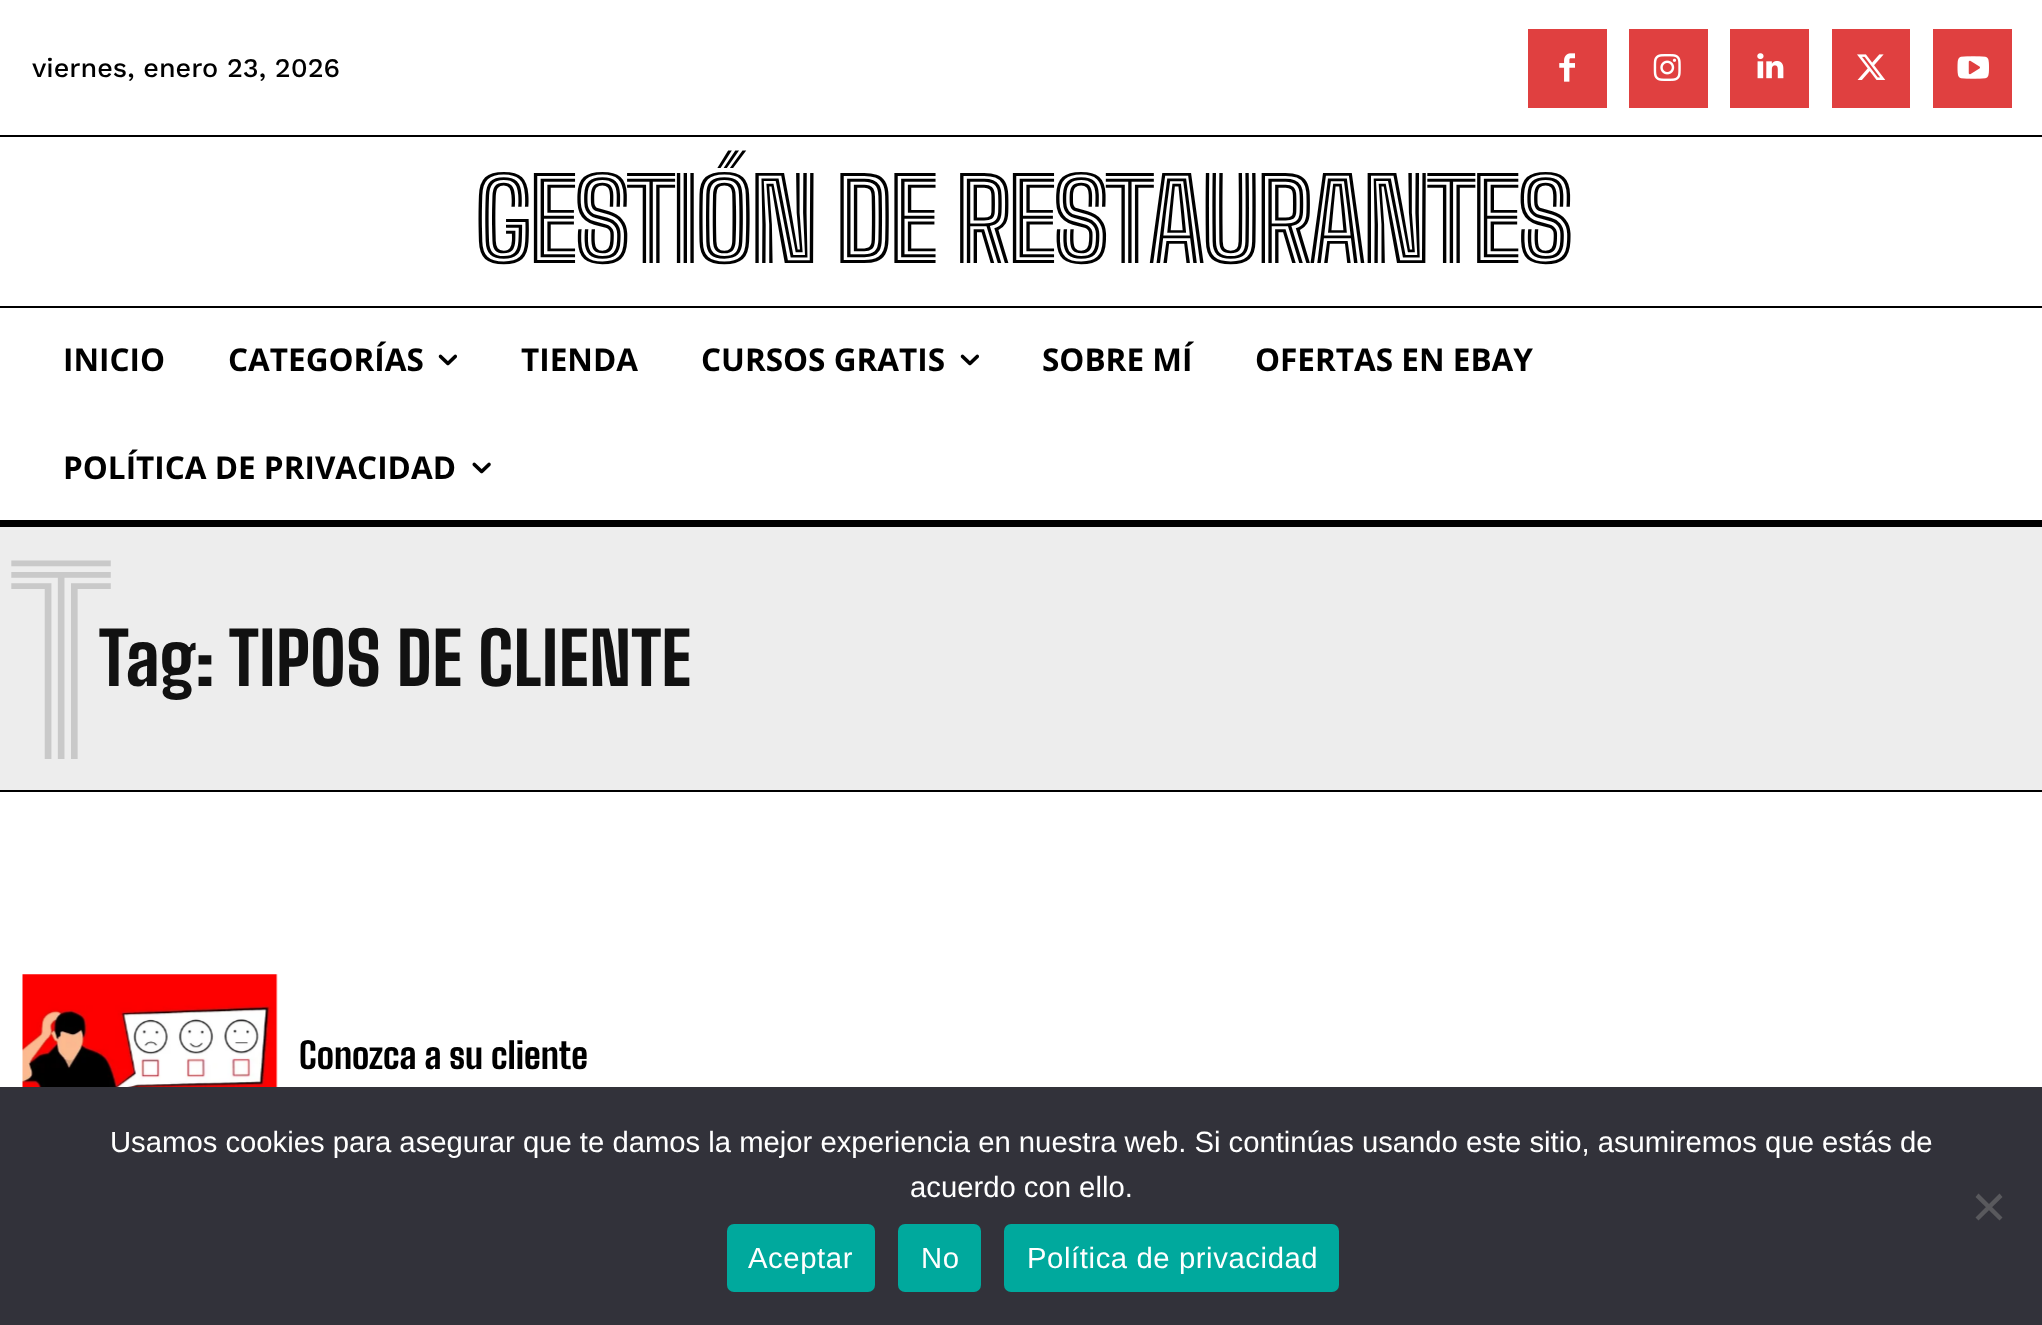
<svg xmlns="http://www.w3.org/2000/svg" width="2042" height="1325">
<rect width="100%" height="100%" fill="#fff"/>
<text x="32" y="77" style="font-family:Work Sans;font-size:27px;font-weight:500;fill:#000">viernes, enero 23, 2026</text>
<rect x="1528" y="29" width="79" height="79" fill="#e04040"/>
<image x="1559" y="53" width="16" height="29" href="media/1.png"/>
<rect x="1629" y="29" width="79" height="79" fill="#e04040"/>
<image x="1653" y="54" width="28" height="27" href="media/2.png"/>
<rect x="1730" y="29" width="79" height="79" fill="#e04040"/>
<image x="1757" y="53" width="27" height="26" href="media/3.png"/>
<rect x="1832" y="29" width="78" height="79" fill="#e04040"/>
<image x="1857" y="54" width="29" height="26" href="media/4.png"/>
<rect x="1933" y="29" width="79" height="79" fill="#e04040"/>
<image x="1957" y="56" width="32" height="23" href="media/5.png"/>
<rect y="135" width="2042" height="2" fill="#000"/>
<text x="474" y="263" style="font-family:Big Shoulders Inline Text;font-size:112.5px;font-weight:900;letter-spacing:-4.5px;fill:#000">GESTIÓN DE RESTAURANTES</text>
<rect y="306" width="2042" height="2" fill="#000"/>
<rect y="520" width="2042" height="7" fill="#000"/>
<text x="63" y="371" style="font-family:Open Sans;font-size:31.5px;font-weight:bold;fill:#000">INICIO</text>
<text x="228" y="371" style="font-family:Open Sans;font-size:31.5px;font-weight:bold;fill:#000">CATEGORÍAS</text>
<image x="438" y="354" width="19" height="12" href="media/6.png"/>
<text x="521" y="371" style="font-family:Open Sans;font-size:31.5px;font-weight:bold;fill:#000">TIENDA</text>
<text x="701" y="371" style="font-family:Open Sans;font-size:31.5px;font-weight:bold;fill:#000">CURSOS GRATIS</text>
<image x="960" y="354" width="19" height="12" href="media/6.png"/>
<text x="1042" y="371" style="font-family:Open Sans;font-size:31.5px;font-weight:bold;fill:#000">SOBRE MÍ</text>
<text x="1255" y="371" style="font-family:Open Sans;font-size:31.5px;font-weight:bold;fill:#000">OFERTAS EN EBAY</text>
<text x="63" y="479" style="font-family:Open Sans;font-size:31.5px;font-weight:bold;fill:#000">POLÍTICA DE PRIVACIDAD</text>
<image x="472" y="462" width="19" height="12" href="media/7.png"/>
<rect y="527" width="2042" height="263" fill="#ededed"/>
<rect y="790" width="2042" height="2" fill="#000"/>
<text x="10" y="759" style="font-family:Big Shoulders Inline Text;font-size:248px;font-weight:800;fill:#c9c9c9">T</text>
<text x="99" y="686" style="font-family:Big Shoulders Text;font-size:72px;font-weight:800;fill:#111">Tag:</text>
<text x="229" y="686" style="font-family:Big Shoulders Text;font-size:72px;font-weight:800;fill:#111">TIPOS DE CLIENTE</text>
<image x="22" y="974" width="256" height="113" href="media/8.png"/>
<text x="299" y="1069" style="font-family:Big Shoulders Text;font-size:36px;font-weight:800;fill:#000">Conozca a su cliente</text>
<rect y="1087" width="2042" height="238" fill="#32323a"/>
<text x="110" y="1152" style="font-family:Liberation Sans;font-size:29.25px;fill:#fff">Usamos cookies para asegurar que te damos la mejor experiencia en nuestra web. Si continúas usando este sitio, asumiremos que estás de</text>
<text x="910" y="1197" style="font-family:Liberation Sans;font-size:29.25px;fill:#fff">acuerdo con ello.</text>
<path d="M1999.5 1193.5l3 3.5l-24 23.5l-3-3z" fill="#59595d"/>
<path d="M1975.5 1197l3-3.5l24 24l-3 3z" fill="#59595d"/>
<rect x="727" y="1224" width="148" height="68" rx="7" fill="#00a99d"/>
<text x="748" y="1268" style="font-family:Liberation Sans;font-size:29.25px;letter-spacing:0.6px;fill:#fff">Aceptar</text>
<rect x="898" y="1224" width="83" height="68" rx="7" fill="#00a99d"/>
<text x="921" y="1268" style="font-family:Liberation Sans;font-size:29.25px;letter-spacing:0.6px;fill:#fff">No</text>
<rect x="1004" y="1224" width="335" height="68" rx="7" fill="#00a99d"/>
<text x="1027" y="1268" style="font-family:Liberation Sans;font-size:29.25px;letter-spacing:0.6px;fill:#fff">Política de privacidad</text>
</svg>
